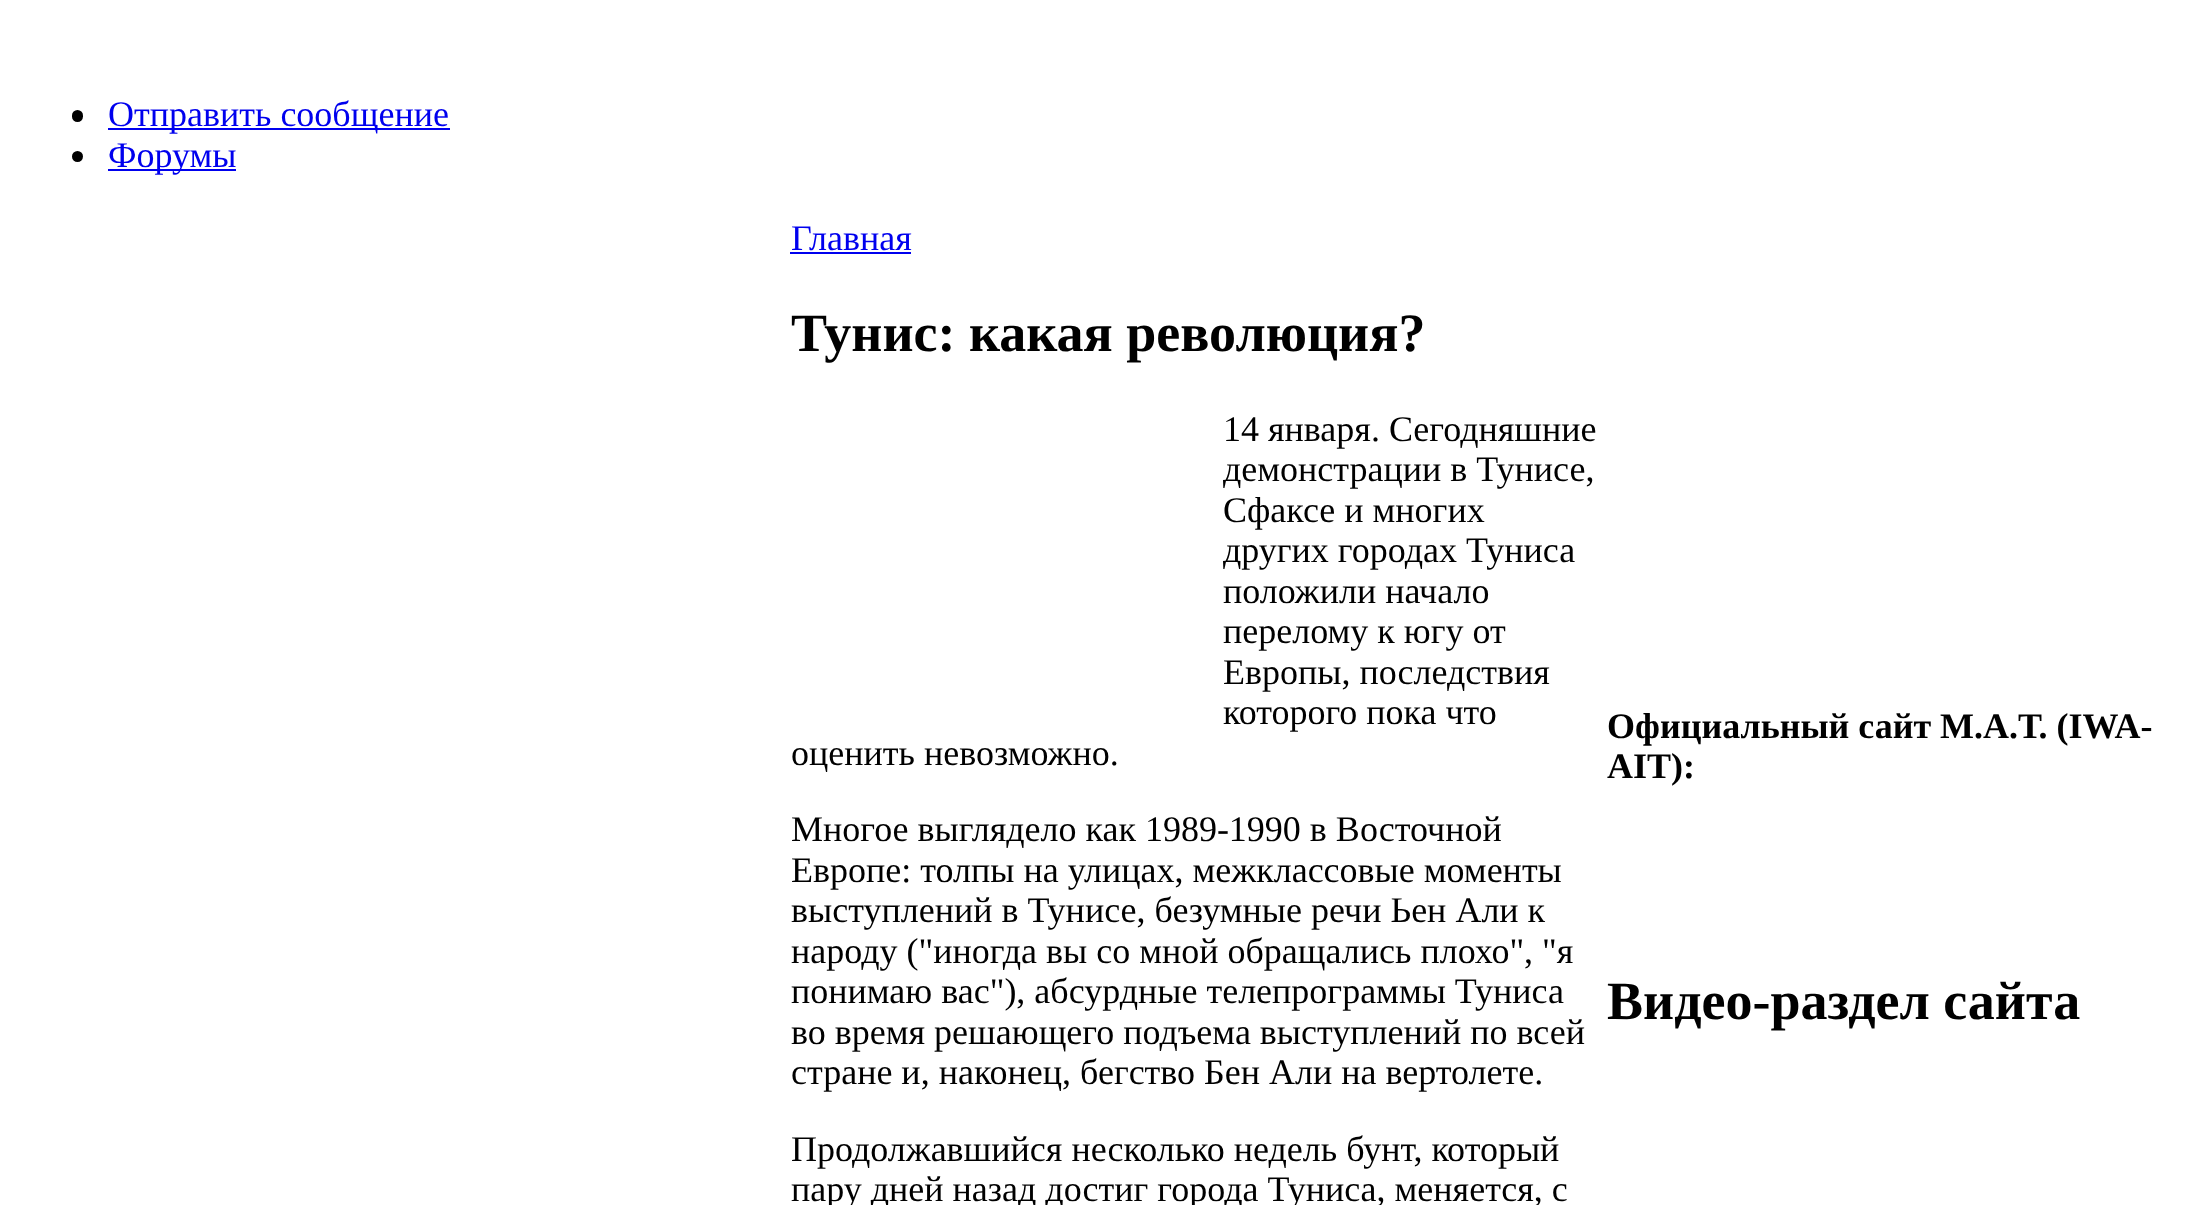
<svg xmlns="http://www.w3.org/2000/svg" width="2203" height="1205">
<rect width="100%" height="100%" fill="#fff"/>
<rect x="72" y="110" width="11" height="12" rx="5.5" fill="#000"/>
<rect x="108" y="128" width="342" height="2" fill="#00e"/>
<text x="108" y="126" style="font-family:Liberation Serif;font-size:36px;fill:#00e">Отправить сообщение</text>
<circle cx="77.5" cy="156.5" r="5.5" fill="#000"/>
<rect x="108" y="169" width="128" height="2" fill="#00e"/>
<text x="108" y="167" style="font-family:Liberation Serif;font-size:36px;fill:#00e">Форумы</text>
<text x="791" y="250" style="font-family:Liberation Serif;font-size:36px;fill:#00e">Главная</text>
<rect x="790" y="252" width="121" height="2" fill="#00e"/>
<text x="791" y="351" style="font-family:Liberation Serif;font-size:54px;font-weight:bold;fill:#000">Тунис: какая революция?</text>
<text x="1223" y="441" style="font-family:Liberation Serif;font-size:36px;fill:#000">14 января. Сегодняшние</text>
<text x="1223" y="481" style="font-family:Liberation Serif;font-size:36px;fill:#000">демонстрации в Тунисе,</text>
<text x="1223" y="522" style="font-family:Liberation Serif;font-size:36px;fill:#000">Сфаксе и многих</text>
<text x="1223" y="562" style="font-family:Liberation Serif;font-size:36px;fill:#000">других городах Туниса</text>
<text x="1223" y="603" style="font-family:Liberation Serif;font-size:36px;fill:#000">положили начало</text>
<text x="1223" y="643" style="font-family:Liberation Serif;font-size:36px;fill:#000">перелому к югу от</text>
<text x="1223" y="684" style="font-family:Liberation Serif;font-size:36px;fill:#000">Европы, последствия</text>
<text x="1223" y="724" style="font-family:Liberation Serif;font-size:36px;fill:#000">которого пока что</text>
<text x="791" y="765" style="font-family:Liberation Serif;font-size:36px;fill:#000">оценить невозможно.</text>
<text x="791" y="841" style="font-family:Liberation Serif;font-size:36px;fill:#000">Многое выглядело как 1989-1990 в Восточной</text>
<text x="791" y="882" style="font-family:Liberation Serif;font-size:36px;fill:#000">Европе: толпы на улицах, межклассовые моменты</text>
<text x="791" y="922" style="font-family:Liberation Serif;font-size:36px;fill:#000">выступлений в Тунисе, безумные речи Ьен Али к</text>
<text x="791" y="963" style="font-family:Liberation Serif;font-size:36px;fill:#000">народу ("иногда вы со мной обращались плохо", "я</text>
<text x="791" y="1003" style="font-family:Liberation Serif;font-size:36px;fill:#000">понимаю вас"), абсурдные телепрограммы Туниса</text>
<text x="791" y="1044" style="font-family:Liberation Serif;font-size:36px;fill:#000">во время решающего подъема выступлений по всей</text>
<text x="791" y="1084" style="font-family:Liberation Serif;font-size:36px;fill:#000">стране и, наконец, бегство Бен Али на вертолете.</text>
<text x="791" y="1161" style="font-family:Liberation Serif;font-size:36px;fill:#000">Продолжавшийся несколько недель бунт, который</text>
<text x="791" y="1201" style="font-family:Liberation Serif;font-size:36px;fill:#000">пару дней назад достиг города Туниса, меняется, с</text>
<text x="1607" y="738" style="font-family:Liberation Serif;font-size:36px;font-weight:bold;fill:#000">Официальный сайт М.А.Т. (IWA-</text>
<text x="1607" y="778" style="font-family:Liberation Serif;font-size:36px;font-weight:bold;fill:#000">AIT):</text>
<text x="1607" y="1019" style="font-family:Liberation Serif;font-size:54px;font-weight:bold;fill:#000">Видео-раздел сайта</text>
</svg>
